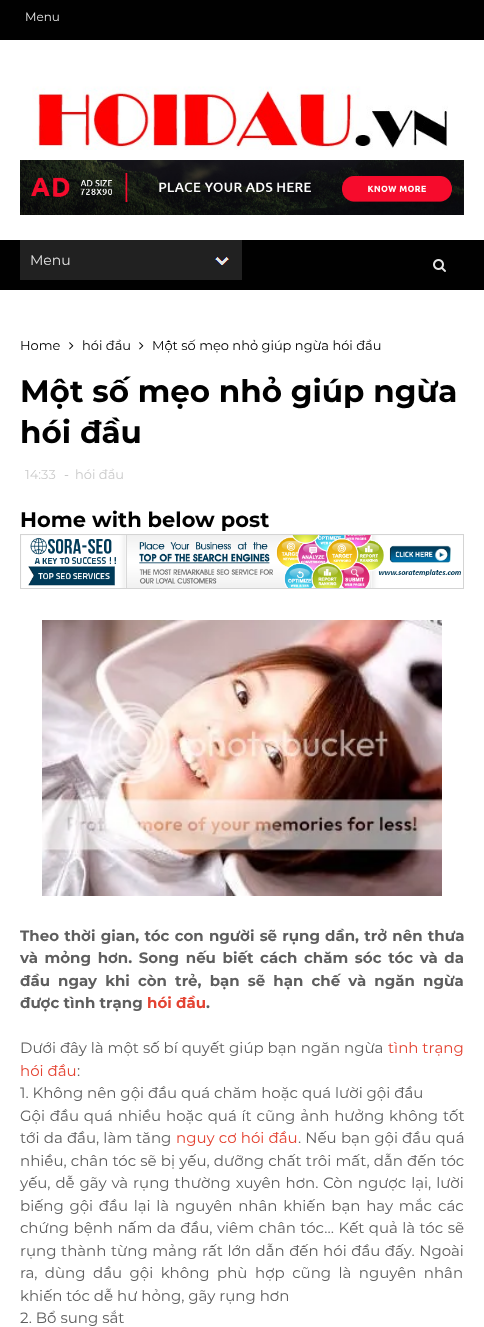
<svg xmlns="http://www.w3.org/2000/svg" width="484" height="1327">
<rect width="100%" height="100%" fill="#fff"/>
<rect width="484" height="40" fill="#010101"/>
<text x="25" y="21" style="font-family:Montserrat;font-size:12px;fill:#e4e4e4">Menu</text>
<image x="32" y="86" width="416" height="64" href="media/1.png"/>
<image x="20" y="160" width="444" height="55" href="media/2.png"/>
<rect y="240" width="484" height="50" fill="#010101"/>
<rect x="20" y="240" width="222" height="40" fill="#212121"/>
<image x="215" y="257" width="14" height="8" href="media/3.png"/>
<text x="30" y="265" style="font-family:Montserrat;font-size:14px;fill:#e4e4e4">Menu</text>
<image x="433" y="259" width="13" height="13" href="media/4.png"/>
<text x="20" y="350" style="font-family:Montserrat;font-size:13px;fill:#010101">Home</text>
<image x="69" y="342" width="5" height="8" href="media/5.png"/>
<text x="82" y="350" style="font-family:Montserrat;font-size:13px;fill:#010101">hói đầu</text>
<image x="139" y="342" width="5" height="8" href="media/5.png"/>
<text x="152" y="350" style="font-family:Montserrat;font-size:13px;fill:#010101">Một số mẹo nhỏ giúp ngừa hói đầu</text>
<text x="20" y="402" style="font-family:Montserrat;font-size:31px;font-weight:bold;fill:#010101">Một số mẹo nhỏ giúp ngừa</text>
<text x="20" y="443" style="font-family:Montserrat;font-size:31px;font-weight:bold;fill:#010101">hói đầu</text>
<text x="25" y="479" style="font-family:Montserrat;font-size:13px;fill:#cbcbcb">14:33</text>
<text x="64" y="479" style="font-family:Montserrat;font-size:13px;fill:#bdbdbd">-</text>
<text x="75" y="479" style="font-family:Montserrat;font-size:13px;fill:#cbcbcb">hói đầu</text>
<text x="20" y="527" style="font-family:Montserrat;font-size:21px;font-weight:bold;fill:#010101">Home with below post</text>
<image x="20" y="534" width="444" height="55" href="media/6.png"/>
<image x="42" y="620" width="400" height="276" href="media/7.png"/>
<text x="20" y="941" word-spacing="1" style="font-family:Montserrat;font-size:15px;font-weight:bold;fill:#5e5e5e">Theo thời gian, tóc con người sẽ rụng</text>
<text x="325" y="941" word-spacing="1" style="font-family:Montserrat;font-size:15px;font-weight:bold;fill:#5e5e5e">dần, trở nên thưa</text>
<text x="20" y="963" word-spacing="2.4" style="font-family:Montserrat;font-size:15px;font-weight:bold;fill:#5e5e5e">và mỏng hơn. Song nếu biết cách chăm sóc tóc và da</text>
<text x="20" y="986" style="font-family:Montserrat;font-size:15px;font-weight:bold;fill:#5e5e5e">đầu</text>
<text x="58" y="986" word-spacing="3.9" style="font-family:Montserrat;font-size:15px;font-weight:bold;fill:#5e5e5e">ngay khi còn trẻ, bạn sẽ hạn chế và ngăn ngừa</text>
<text x="20" y="1008" style="font-family:Montserrat;font-size:15px;font-weight:bold;fill:#5e5e5e">được tình trạng</text>
<text x="147" y="1008" style="font-family:Montserrat;font-size:15px;font-weight:bold;fill:#e44332">hói đầu</text>
<text x="206" y="1008" style="font-family:Montserrat;font-size:15px;font-weight:bold;fill:#5e5e5e">.</text>
<text x="20" y="1053" style="font-family:Montserrat;font-size:15px;fill:#5e5e5e">Dưới đây là một số bí quyết giúp bạn ngăn ngừa</text>
<text x="388" y="1053" style="font-family:Montserrat;font-size:15px;fill:#e44332">tình trạng</text>
<text x="20" y="1076" style="font-family:Montserrat;font-size:15px;fill:#e44332">hói đầu</text>
<text x="77" y="1076" style="font-family:Montserrat;font-size:15px;fill:#5e5e5e">:</text>
<text x="20" y="1098" style="font-family:Montserrat;font-size:15px;fill:#5e5e5e">1. Không nên gội đầu quá chăm hoặc quá lười gội đầu</text>
<text x="20" y="1121" word-spacing="0.9" style="font-family:Montserrat;font-size:15px;fill:#5e5e5e">Gội đầu quá nhiều hoặc quá ít cũng ảnh hưởng không tốt</text>
<text x="20" y="1143" word-spacing="0.25" style="font-family:Montserrat;font-size:15px;fill:#5e5e5e">tới da đầu, làm</text>
<text x="136" y="1143" style="font-family:Montserrat;font-size:15px;fill:#5e5e5e">tăng</text>
<text x="176" y="1143" word-spacing="0.25" style="font-family:Montserrat;font-size:15px;fill:#e44332">nguy cơ hói đầu</text>
<text x="298" y="1143" word-spacing="0.25" style="font-family:Montserrat;font-size:15px;fill:#5e5e5e">. Nếu bạn gội đầu quá</text>
<text x="20" y="1166" word-spacing="0.25" style="font-family:Montserrat;font-size:15px;fill:#5e5e5e">nhiều, chân tóc sẽ bị yếu, dưỡng chất trôi mất, dẫn đến tóc</text>
<text x="20" y="1188" word-spacing="1" style="font-family:Montserrat;font-size:15px;fill:#5e5e5e">yếu, dễ gãy và rụng thường xuyên hơn.</text>
<text x="323" y="1188" word-spacing="1" style="font-family:Montserrat;font-size:15px;fill:#5e5e5e">Còn ngược lại, lười</text>
<text x="20" y="1211" word-spacing="1.8" style="font-family:Montserrat;font-size:15px;fill:#5e5e5e">biếng gội đầu lại là nguyên nhân khiến bạn hay mắc</text>
<text x="438" y="1211" style="font-family:Montserrat;font-size:15px;fill:#5e5e5e">các</text>
<text x="20" y="1233" word-spacing="0.5" style="font-family:Montserrat;font-size:15px;fill:#5e5e5e">chứng bệnh nấm da đầu, viêm chân tóc… Kết quả là tóc sẽ</text>
<text x="20" y="1256" word-spacing="0.6" style="font-family:Montserrat;font-size:15px;fill:#5e5e5e">rụng thành</text>
<text x="111" y="1256" word-spacing="0.6" style="font-family:Montserrat;font-size:15px;fill:#5e5e5e">từng mảng rất lớn dẫn đến hói đầu đấy. Ngoài</text>
<text x="20" y="1278" word-spacing="3.5" style="font-family:Montserrat;font-size:15px;fill:#5e5e5e">ra, dùng dầu gội không phù</text>
<text x="255" y="1278" word-spacing="3.5" style="font-family:Montserrat;font-size:15px;fill:#5e5e5e">hợp cũng là nguyên nhân</text>
<text x="20" y="1301" style="font-family:Montserrat;font-size:15px;fill:#5e5e5e">khiến tóc dễ hư hỏng, gãy rụng hơn</text>
<text x="20" y="1323" style="font-family:Montserrat;font-size:15px;fill:#5e5e5e">2. Bổ sung sắt</text>
</svg>
